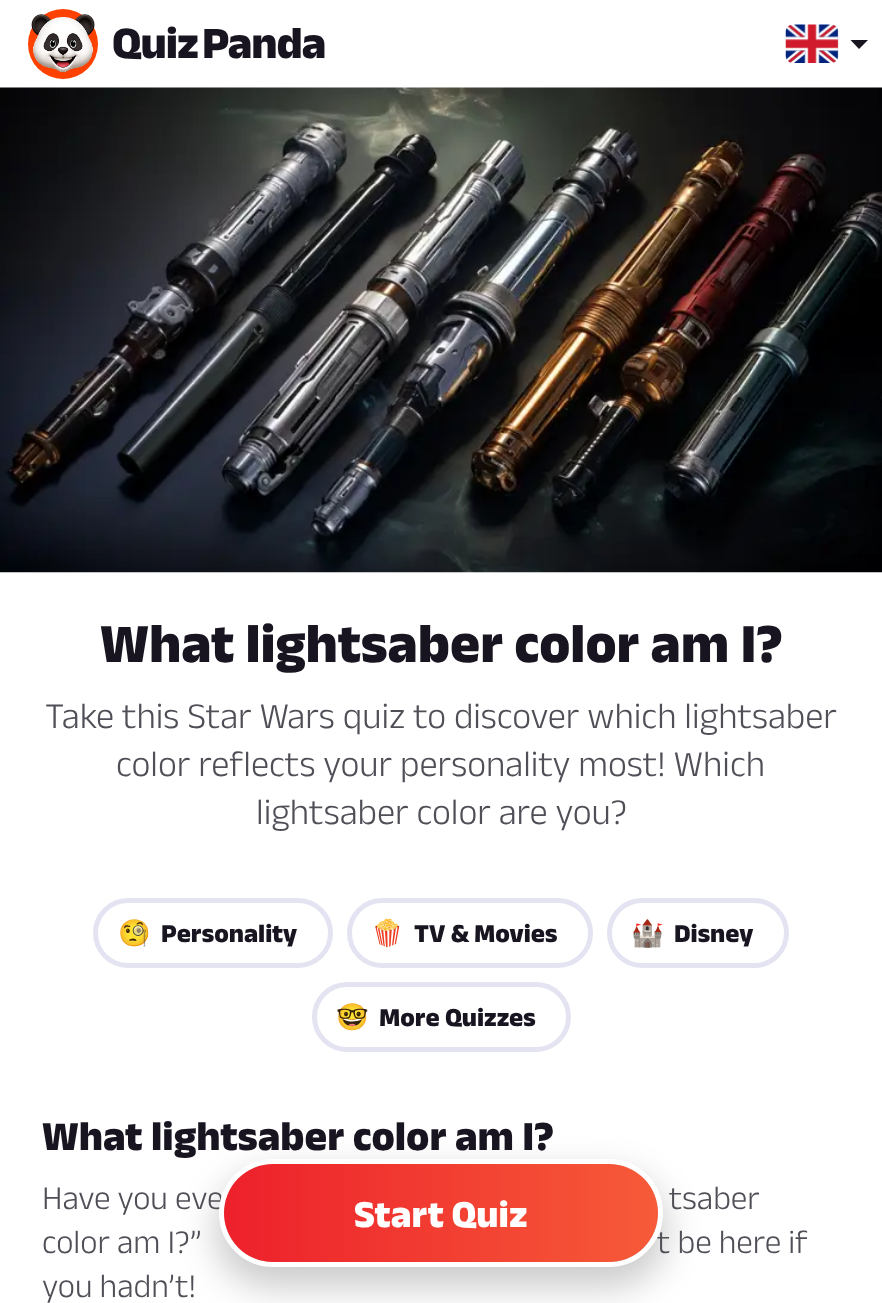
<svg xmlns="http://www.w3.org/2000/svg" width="882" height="1303">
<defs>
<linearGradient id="g1" gradientUnits="userSpaceOnUse" x1="224" y1="1213" x2="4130" y2="1213"><stop offset="0" stop-color="#ed202b"/><stop offset="0.14" stop-color="#f96a3c"/><stop offset="0.29" stop-color="#fbe731"/><stop offset="0.43" stop-color="#1bb11e"/><stop offset="0.57" stop-color="#148bec"/><stop offset="0.71" stop-color="#7a16c7"/><stop offset="0.86" stop-color="#ed202b"/><stop offset="1" stop-color="#f96a3c"/></linearGradient>
</defs>
<rect width="100%" height="100%" fill="#fff"/>
<circle cx="63" cy="44" r="35" fill="#ff4100"/>
<image x="31" y="14" width="64" height="59" href="media/1.png"/>
<text x="112" y="58" style="font-family:Anek Latin;font-size:45.5px;font-weight:800;letter-spacing:-1px;fill:#181420">Quiz</text>
<text x="202" y="58" style="font-family:Anek Latin;font-size:45.5px;font-weight:800;letter-spacing:-1px;fill:#181420">Panda</text>
<image x="785" y="24" width="54" height="39" href="media/2.png"/>
<path d="M850.5 40h17.5l-9 9z" fill="#181420"/>
<image x="0" y="87" width="882" height="486" href="media/3.png"/>
<text x="100" y="662" style="font-family:Anek Latin;font-size:56px;font-weight:800;fill:#181420">What lightsaber color am I?</text>
<text x="45" y="728" style="font-family:Anek Latin;font-size:36.75px;font-weight:300;fill:#504f57">Take this Star Wars quiz to discover which lightsaber</text>
<text x="116" y="776" style="font-family:Anek Latin;font-size:36.75px;font-weight:300;fill:#504f57">color reflects your personality most! Which</text>
<text x="256" y="824" style="font-family:Anek Latin;font-size:36.75px;font-weight:300;fill:#504f57">lightsaber color are you?</text>
<rect x="215" y="1173" width="452" height="115" rx="57.5" fill="#00000033" filter="blur(17.5px)"/>
<text x="42" y="1209" style="font-family:Anek Latin;font-size:33.5px;font-weight:300;fill:#504f57">Have you eve</text>
<text x="657" y="1253" style="font-family:Anek Latin;font-size:33.5px;font-weight:300;fill:#504f57">t be here if</text>
<rect x="221.5" y="1161.5" width="439" height="103" rx="51.5" fill="none" stroke="#fff" stroke-width="5"/>
<rect x="224" y="1164" width="434" height="98" rx="49" fill="url(#g1)"/>
<text x="354" y="1227" style="font-family:Anek Latin;font-size:38.5px;font-weight:800;fill:#fff">Start Quiz</text>
<rect x="95.5" y="900.5" width="235" height="65" rx="32.5" fill="none" stroke="#e3e3f2" stroke-width="5"/>
<text x="118" y="942" style="font-family:Noto Color Emoji;font-size:26.25px;font-weight:bold;fill:#181420">🧐</text>
<text x="161" y="942" style="font-family:Anek Latin;font-size:26.25px;font-weight:800;fill:#181420">Personality</text>
<rect x="349.5" y="900.5" width="241" height="65" rx="32.5" fill="none" stroke="#e3e3f2" stroke-width="5"/>
<text x="371" y="942" style="font-family:Noto Color Emoji;font-size:26.25px;font-weight:bold;fill:#181420">🍿</text>
<text x="414" y="942" style="font-family:Anek Latin;font-size:26.25px;font-weight:800;fill:#181420">TV &amp; Movies</text>
<rect x="609.5" y="900.5" width="177" height="65" rx="32.5" fill="none" stroke="#e3e3f2" stroke-width="5"/>
<text x="631" y="942" style="font-family:Noto Color Emoji;font-size:26.25px;font-weight:bold;fill:#181420">🏰</text>
<text x="674" y="942" style="font-family:Anek Latin;font-size:26.25px;font-weight:800;fill:#181420">Disney</text>
<rect x="314.5" y="984.5" width="254" height="65" rx="32.5" fill="none" stroke="#e3e3f2" stroke-width="5"/>
<text x="336" y="1026" style="font-family:Noto Color Emoji;font-size:26.25px;font-weight:bold;fill:#181420">🤓</text>
<text x="379" y="1026" style="font-family:Anek Latin;font-size:26.25px;font-weight:800;fill:#181420">More Quizzes</text>
<text x="42" y="1150" style="font-family:Anek Latin;font-size:42px;font-weight:800;fill:#181420">What lightsaber color am I?</text>
<text x="669" y="1209" style="font-family:Anek Latin;font-size:33.5px;font-weight:300;fill:#504f57">tsaber</text>
<text x="42" y="1253" style="font-family:Anek Latin;font-size:33.5px;font-weight:300;fill:#504f57">color am I?”</text>
<text x="42" y="1297" style="font-family:Anek Latin;font-size:33.5px;font-weight:300;fill:#504f57">you hadn’t!</text>
</svg>
